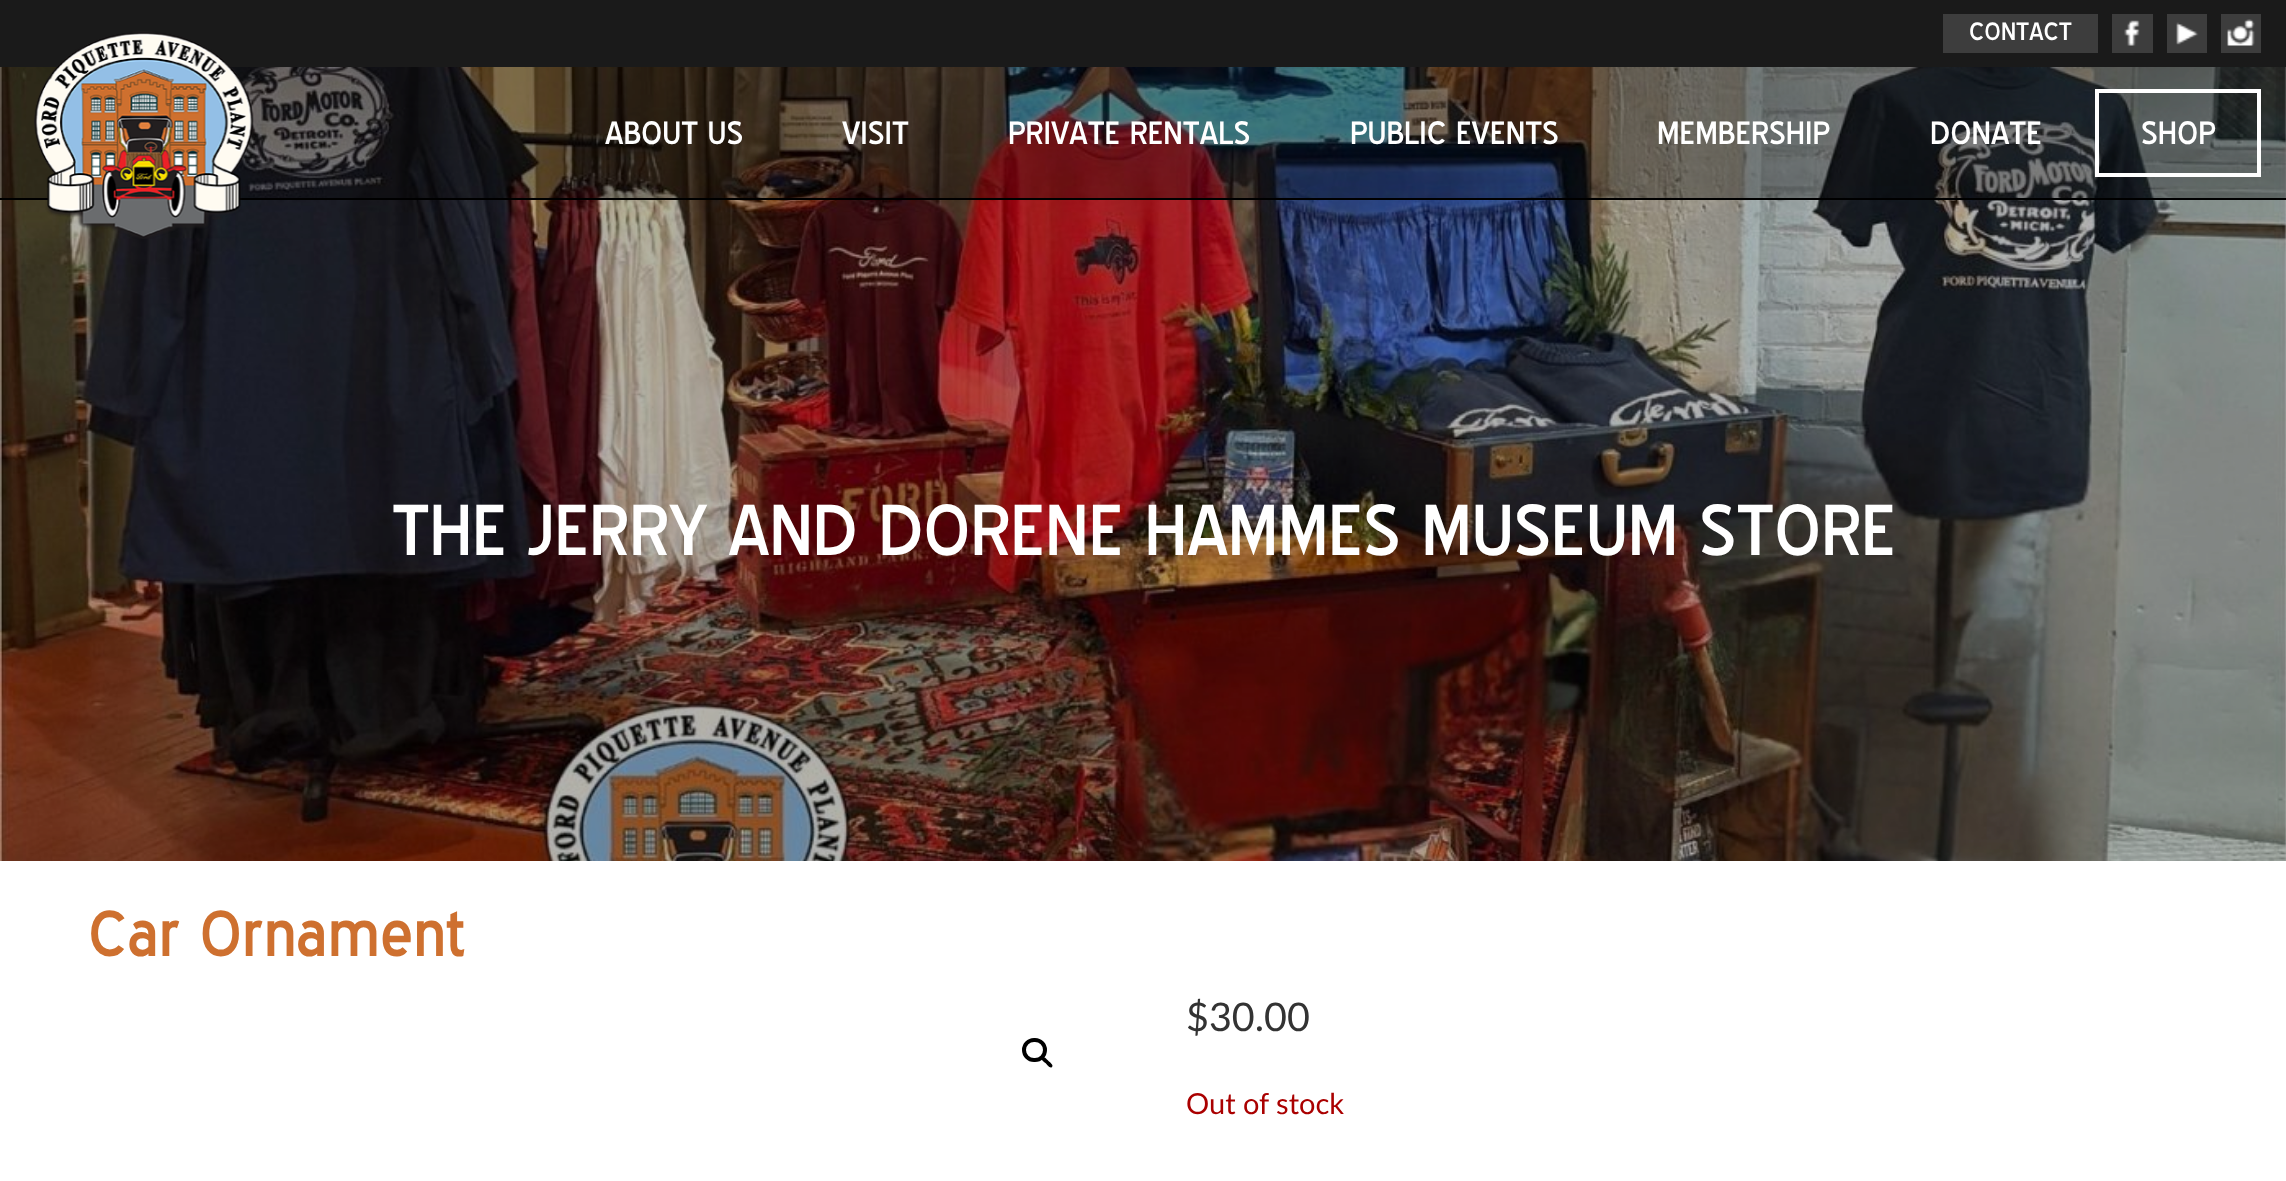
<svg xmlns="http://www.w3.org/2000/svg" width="2286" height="1181">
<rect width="100%" height="100%" fill="#fff"/>
<rect width="2286" height="67" fill="#1a1a1a"/>
<rect x="1943" y="14" width="155" height="39" fill="#3d3d3d"/>
<text x="1969" y="40" style="font-family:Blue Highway;font-size:24.5px;fill:#fff">CONTACT</text>
<rect x="2112" y="14" width="41" height="39" fill="#3d3d3d"/>
<image x="2124" y="20" width="16" height="26" href="media/1.png"/>
<rect x="2167" y="14" width="40" height="39" fill="#3d3d3d"/>
<image x="2176" y="22" width="23" height="23" href="media/2.png"/>
<rect x="2221" y="14" width="40" height="39" fill="#3d3d3d"/>
<image x="2227" y="19" width="28" height="27" href="media/3.png"/>
<image x="0" y="67" width="2286" height="794" href="media/5.png"/>
<rect y="67" width="2286" height="131" fill="#0000004d"/>
<rect y="198" width="2286" height="2" fill="#000"/>
<image x="34" y="31" width="220" height="208" href="media/4.png"/>
<text x="605" y="144" style="font-family:Blue Highway;font-size:31.5px;fill:#fff">ABOUT US</text>
<text x="842" y="144" style="font-family:Blue Highway;font-size:31.5px;fill:#fff">VISIT</text>
<text x="1008" y="144" style="font-family:Blue Highway;font-size:31.5px;fill:#fff">PRIVATE RENTALS</text>
<text x="1350" y="144" style="font-family:Blue Highway;font-size:31.5px;fill:#fff">PUBLIC EVENTS</text>
<text x="1657" y="144" style="font-family:Blue Highway;font-size:31.5px;fill:#fff">MEMBERSHIP</text>
<text x="1930" y="144" style="font-family:Blue Highway;font-size:31.5px;fill:#fff">DONATE</text>
<rect x="2097" y="91" width="162" height="84" fill="none" stroke="#fff" stroke-width="4"/>
<text x="2141" y="144" style="font-family:Blue Highway;font-size:31.5px;fill:#fff">SHOP</text>
<text x="392" y="555" style="font-family:Blue Highway;font-size:70px;fill:#fff">THE JERRY AND DORENE HAMMES MUSEUM STORE</text>
<text x="88" y="956" style="font-family:Blue Highway;font-size:63px;fill:#ce702f">Car Ornament</text>
<rect x="1024" y="1040" width="21" height="20" rx="10" fill="none" stroke="#000" stroke-width="4"/>
<path d="M1042 1057.5c2-2 5.5 2.5 6.5 3.5c1 1 5.5 4 3.5 6c-2 2-5-2.5-6-3.5c-1-1-6-4-4-6z" fill="#000"/>
<text x="1186" y="1031" style="font-family:Lato;font-size:39.5px;fill:#333">$30.00</text>
<text x="1186" y="1114" style="font-family:Lato;font-size:29px;fill:#a00">Out of stock</text>
</svg>
